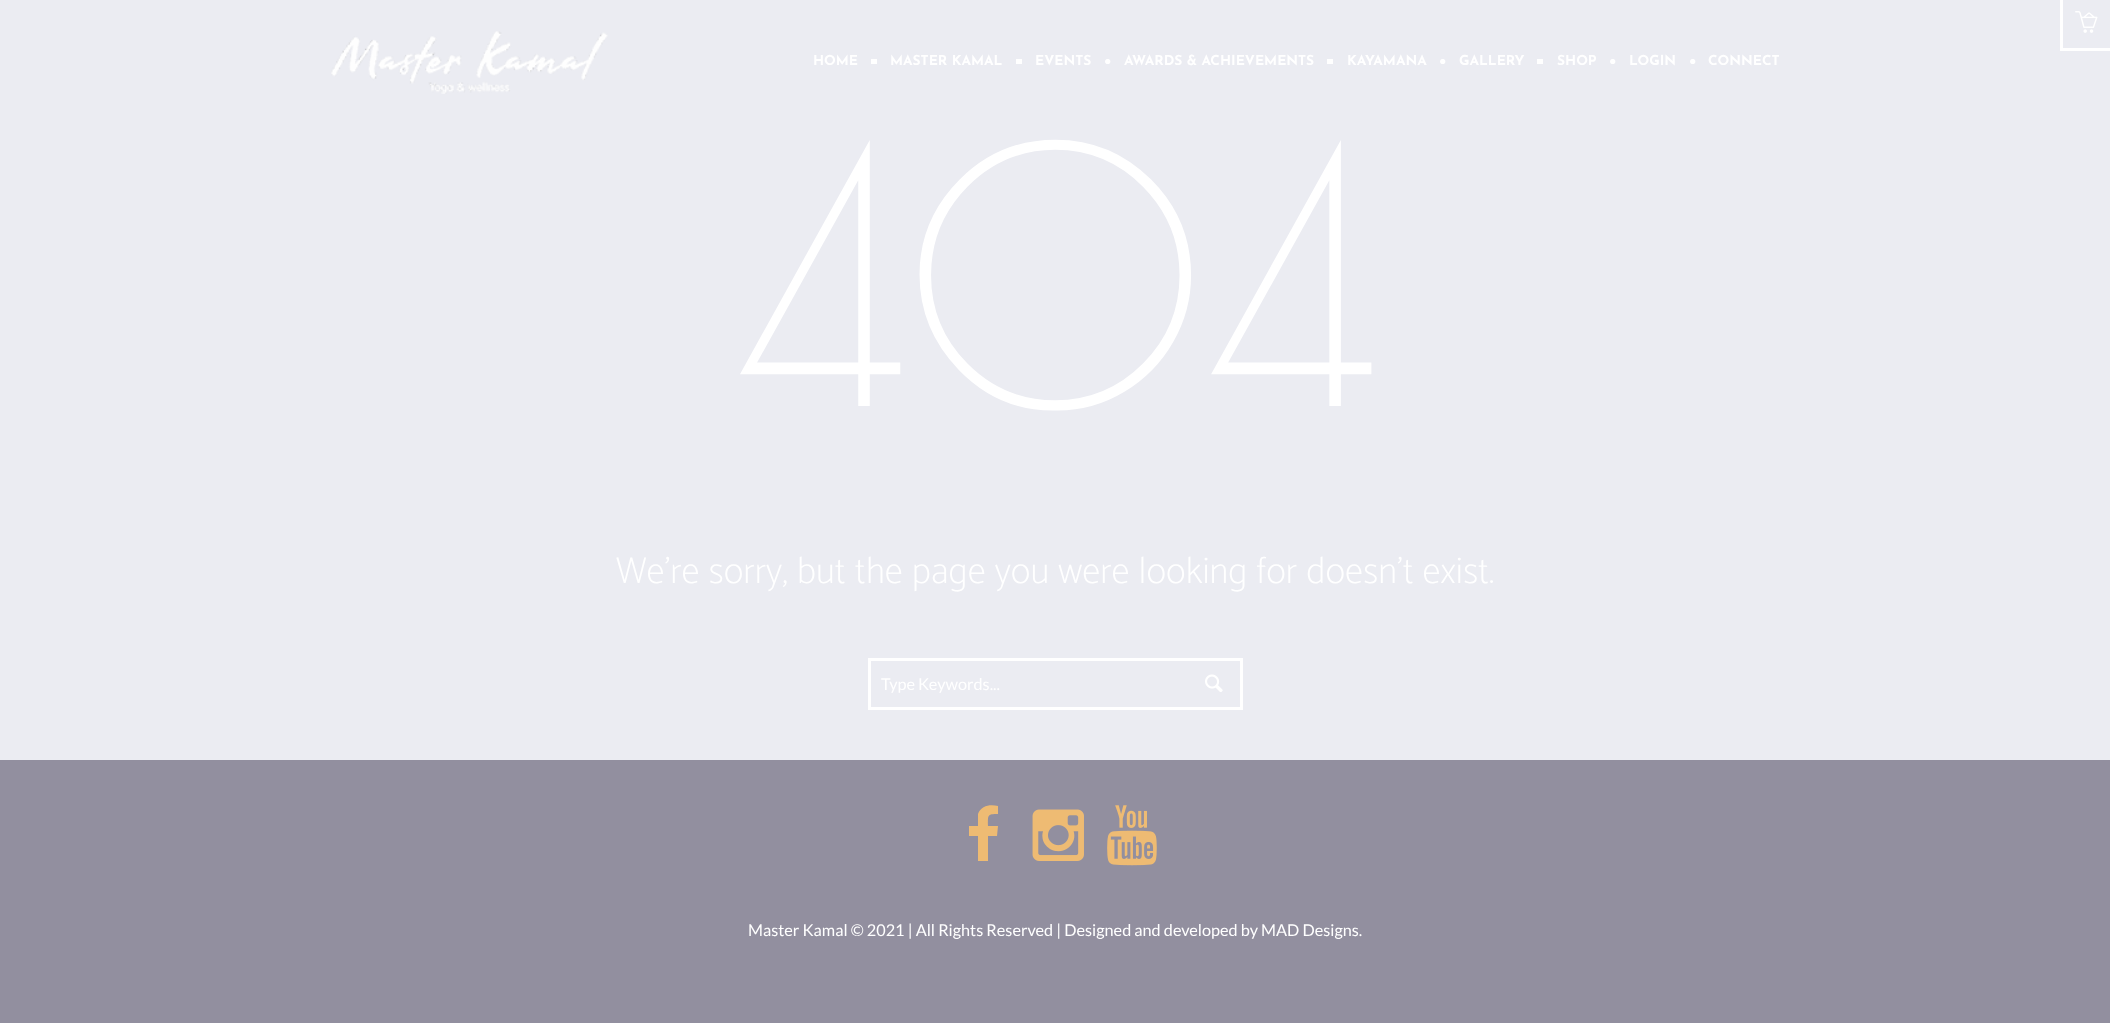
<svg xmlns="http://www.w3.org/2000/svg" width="2110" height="1023">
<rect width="100%" height="100%" fill="#928f9f"/>
<rect width="2110" height="760" fill="#ebecf2"/>
<rect x="2060" y="48" width="50" height="3" fill="#fff"/>
<rect x="2060" width="3" height="50" fill="#fff"/>
<image x="2075" y="11" width="23" height="22" href="media/1.png"/>
<image x="331" y="31" width="277" height="63" href="media/2.png"/>
<text x="813" y="65" style="font-family:Josefin Sans;font-size:13.75px;font-weight:bold;fill:#fff">HOME</text>
<rect x="871" y="59" width="6" height="5" fill="#fff"/>
<text x="890" y="65" style="font-family:Josefin Sans;font-size:13.75px;font-weight:bold;fill:#fff">MASTER KAMAL</text>
<rect x="1016" y="59" width="6" height="5" fill="#fff"/>
<text x="1035" y="65" style="font-family:Josefin Sans;font-size:13.75px;font-weight:bold;fill:#fff">EVENTS</text>
<image x="1105" y="59" width="6" height="5" href="media/3.png"/>
<text x="1124" y="65" style="font-family:Josefin Sans;font-size:13.75px;font-weight:bold;fill:#fff">AWARDS &amp; ACHIEVEMENTS</text>
<rect x="1327" y="59" width="6" height="5" fill="#fff"/>
<text x="1347" y="65" style="font-family:Josefin Sans;font-size:13.75px;font-weight:bold;fill:#fff">KAYAMANA</text>
<image x="1440" y="59" width="6" height="5" href="media/3.png"/>
<text x="1459" y="65" style="font-family:Josefin Sans;font-size:13.75px;font-weight:bold;fill:#fff">GALLERY</text>
<rect x="1537" y="59" width="6" height="5" fill="#fff"/>
<text x="1557" y="65" style="font-family:Josefin Sans;font-size:13.75px;font-weight:bold;fill:#fff">SHOP</text>
<image x="1610" y="59" width="6" height="5" href="media/3.png"/>
<text x="1629" y="65" style="font-family:Josefin Sans;font-size:13.75px;font-weight:bold;fill:#fff">LOGIN</text>
<image x="1690" y="59" width="6" height="5" href="media/3.png"/>
<text x="1708" y="65" style="font-family:Josefin Sans;font-size:13.75px;font-weight:bold;fill:#fff">CONNECT</text>
<text x="734" y="406" style="font-family:Poiret One;font-size:350px;fill:#fff">404</text>
<text x="616" y="583" style="font-family:Catamaran;font-size:37.5px;font-weight:100;fill:#fff">We're sorry, but the page you were looking for doesn't exist.</text>
<rect x="869.5" y="659.5" width="372" height="49" fill="none" stroke="#fff" stroke-width="3"/>
<text x="881" y="690" style="font-family:Lato;font-size:16.25px;fill:#fff">Type Keywords...</text>
<image x="1205" y="674" width="18" height="18" href="media/4.png"/>
<path d="M998 806v8c-11 0-10 1-10 12h10l-1 10h-9v25h-10v-25h-9v-10h9v-12c3-9 13-10 20-8z" fill="#eebb73"/>
<image x="1032" y="809" width="52" height="52" href="media/5.png"/>
<image x="1107" y="805" width="50" height="61" href="media/6.png"/>
<text x="748" y="936" style="font-family:Lato;font-size:16.25px;fill:#fff">Master Kamal © 2021 | All Rights Reserved | Designed and developed by MAD Designs.</text>
</svg>
